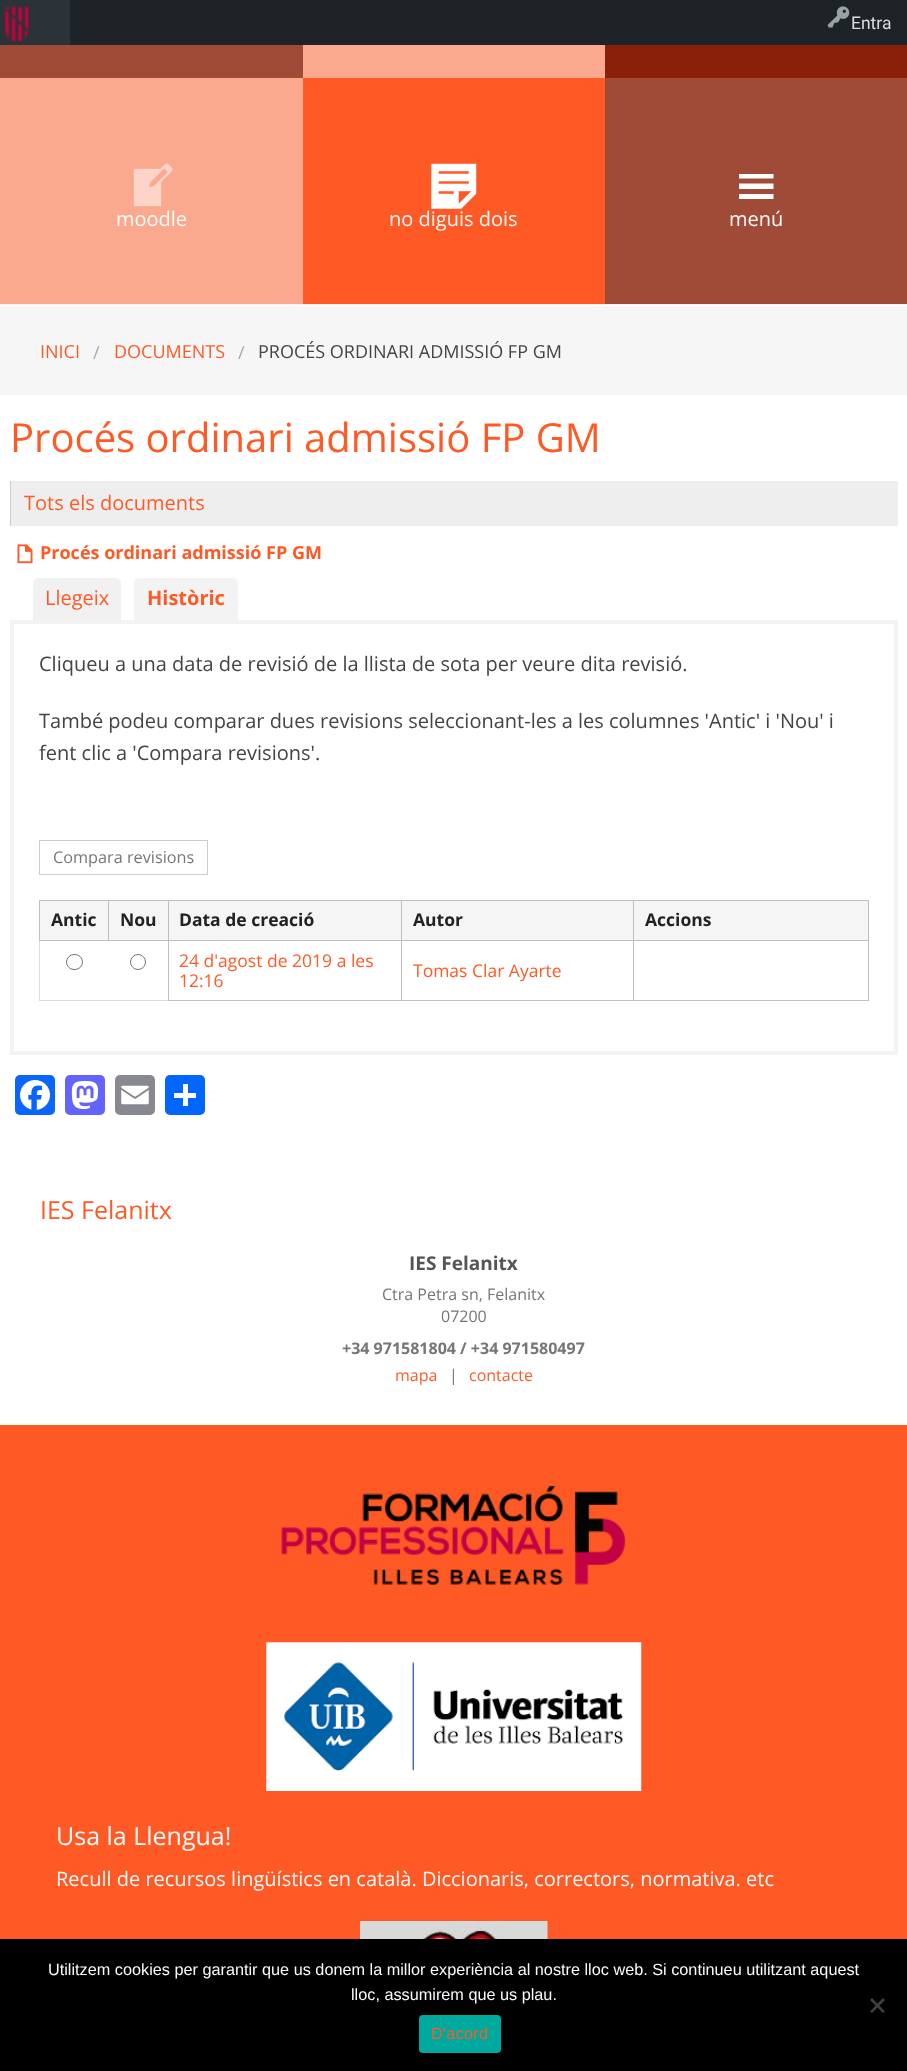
<svg xmlns="http://www.w3.org/2000/svg" width="907" height="2071">
<rect width="100%" height="100%" fill="#fff"/>
<rect x="70" width="837" height="45" fill="#1d2327"/>
<rect width="70" height="45" fill="#2c3338"/>
<image x="4" y="6" width="25" height="37" href="media/1.png"/>
<image x="827" y="6" width="23" height="22" href="media/2.png"/>
<text x="851" y="29" style="font-family:Roboto;font-size:17.5px;fill:#ddd">Entra</text>
<rect y="304" width="907" height="1" fill="#f5f5f5"/>
<rect y="45" width="303" height="33" fill="#9f4b38"/>
<rect x="303" y="45" width="302" height="33" fill="#faa88e"/>
<rect x="605" y="45" width="302" height="33" fill="#8a2009"/>
<rect y="78" width="303" height="226" fill="#faa88e"/>
<image x="133" y="163" width="40" height="44" href="media/3.png"/>
<text x="116" y="226" style="font-family:Open Sans;font-size:20px;fill:#fafafa">moodle</text>
<rect x="303" y="78" width="302" height="226" fill="#ff5a26"/>
<image x="431" y="163" width="46" height="46" href="media/4.png"/>
<text x="389" y="226" style="font-family:Open Sans;font-size:20px;fill:#fafafa">no diguis dois</text>
<rect x="605" y="78" width="302" height="226" fill="#9f4b38"/>
<path d="M739 199h34.5v-5h-34.5zm0-25v4.5h34.5v-4.5zm0 15h34.5v-5.5h-34.5z" fill="#fdfdfd"/>
<text x="729" y="226" style="font-family:Open Sans;font-size:20px;fill:#fafafa">menú</text>
<rect y="306" width="907" height="89" fill="#f6f6f6"/>
<text x="40" y="358" style="font-family:Open Sans;font-size:18px;fill:#ff5a26">INICI</text>
<text x="93" y="359" style="font-family:Open Sans;font-size:18px;fill:#aaa">/</text>
<text x="114" y="358" style="font-family:Open Sans;font-size:18px;fill:#ff5a26">DOCUMENTS</text>
<text x="238" y="359" style="font-family:Open Sans;font-size:18px;fill:#aaa">/</text>
<text x="258" y="358" style="font-family:Open Sans;font-size:18px;fill:#444">PROCÉS ORDINARI ADMISSIÓ FP GM</text>
<text x="10" y="452" style="font-family:Open Sans;font-size:40px;fill:#ff5a26">Procés ordinari admissió FP GM</text>
<rect x="11" y="481" width="887" height="45" fill="#eee"/>
<rect x="10" y="481" width="1" height="45" fill="#ccc"/>
<text x="24" y="510" style="font-family:Open Sans;font-size:20px;fill:#ff5a26">Tots els documents</text>
<image x="17" y="544" width="16" height="20" href="media/5.png"/>
<text x="40" y="559" style="font-family:Open Sans;font-size:18px;font-weight:bold;fill:#ff5a26">Procés ordinari admissió FP GM</text>
<path d="M39 578h76c3.5 0 6 2.5 6 6v36h-88v-36c0-3.5 2.5-6 6-6z" fill="#f1f1f1"/>
<text x="45" y="605" style="font-family:Open Sans;font-size:20px;fill:#ff5a26">Llegeix</text>
<path d="M140 578h92c3.5 0 6 2.5 6 6v36h-104v-36c0-3.5 2.5-6 6-6z" fill="#f3f3f3"/>
<text x="147" y="605" style="font-family:Open Sans;font-size:20px;font-weight:bold;fill:#ff5a26">Històric</text>
<rect x="12" y="622" width="884" height="431" fill="none" stroke="#f3f3f3" stroke-width="4"/>
<text x="39" y="671" style="font-family:Open Sans;font-size:20px;fill:#444">Cliqueu a una data de revisió de la llista de sota per veure dita revisió.</text>
<text x="39" y="728" style="font-family:Open Sans;font-size:20px;fill:#444">També podeu comparar dues revisions seleccionant-les a les columnes 'Antic' i 'Nou' i</text>
<text x="39" y="760" style="font-family:Open Sans;font-size:20px;fill:#444">fent clic a 'Compara revisions'.</text>
<rect x="39.5" y="840.5" width="168" height="34" fill="none" stroke="#ccc"/>
<text x="53" y="863" style="font-family:Open Sans;font-size:16.25px;fill:#767676">Compara revisions</text>
<rect x="39" y="1000" width="129" height="1" fill="#ddd"/>
<rect x="39" y="941" width="1" height="60" fill="#ddd"/>
<rect x="40" y="901" width="828" height="39" fill="#f5f5f5"/>
<rect x="633" y="900" width="236" height="1" fill="#c0c0c0"/>
<rect x="633" y="940" width="236" height="1" fill="#c0c0c0"/>
<rect x="868" y="940" width="1" height="61" fill="#c0c0c0"/>
<rect x="633" y="1000" width="236" height="1" fill="#c0c0c0"/>
<rect x="633" y="940" width="1" height="61" fill="#c0c0c0"/>
<rect x="401" y="940" width="233" height="1" fill="#c0c0c0"/>
<rect x="633" y="900" width="1" height="41" fill="#c0c0c0"/>
<rect x="401" y="900" width="233" height="1" fill="#c0c0c0"/>
<rect x="401" y="1000" width="233" height="1" fill="#c0c0c0"/>
<rect x="401" y="940" width="1" height="61" fill="#c0c0c0"/>
<rect x="168" y="940" width="235" height="1" fill="#c0c0c0"/>
<rect x="401" y="900" width="1" height="41" fill="#c0c0c0"/>
<rect x="168" y="900" width="235" height="1" fill="#c0c0c0"/>
<rect x="168" y="1000" width="235" height="1" fill="#c0c0c0"/>
<rect x="168" y="940" width="1" height="61" fill="#c0c0c0"/>
<rect x="168" y="900" width="1" height="41" fill="#c0c0c0"/>
<rect x="108" y="900" width="61" height="1" fill="#c0c0c0"/>
<rect x="108" y="940" width="61" height="1" fill="#c0c0c0"/>
<rect x="108" y="900" width="1" height="41" fill="#c0c0c0"/>
<rect x="39" y="900" width="70" height="1" fill="#c0c0c0"/>
<rect x="39" y="940" width="70" height="1" fill="#c0c0c0"/>
<rect x="39" y="900" width="1" height="41" fill="#c0c0c0"/>
<text x="51" y="926" style="font-family:Open Sans;font-size:17.5px;font-weight:bold;fill:#222">Antic</text>
<text x="120" y="926" style="font-family:Open Sans;font-size:17.5px;font-weight:bold;fill:#222">Nou</text>
<text x="179" y="926" style="font-family:Open Sans;font-size:17.5px;font-weight:bold;fill:#222">Data de creació</text>
<text x="413" y="926" style="font-family:Open Sans;font-size:17.5px;font-weight:bold;fill:#222">Autor</text>
<rect x="868" y="900" width="1" height="41" fill="#c0c0c0"/>
<text x="645" y="926" style="font-family:Open Sans;font-size:17.5px;font-weight:bold;fill:#222">Accions</text>
<rect x="66.5" y="954.5" width="16" height="15" rx="7.5" fill="none" stroke="#767676"/>
<circle cx="138" cy="962" r="7.5" fill="none" stroke="#767676"/>
<text x="179" y="967" style="font-family:Open Sans;font-size:17.5px;fill:#ff5a26">24 d'agost de 2019 a les</text>
<text x="179" y="987" style="font-family:Open Sans;font-size:17.5px;fill:#ff5a26">12:16</text>
<text x="413" y="977" style="font-family:Open Sans;font-size:17.5px;fill:#ff5a26">Tomas Clar Ayarte</text>
<rect x="15" y="1075" width="40" height="40" rx="5" fill="#0866ff"/>
<image x="20" y="1080" width="30" height="30" href="media/6.png"/>
<rect x="65" y="1075" width="40" height="40" rx="5" fill="#6364ff"/>
<image x="71" y="1080" width="28" height="29" href="media/7.png"/>
<rect x="115" y="1075" width="40" height="40" rx="5" fill="#888990"/>
<image x="121" y="1085" width="28" height="20" href="media/8.png"/>
<rect x="165" y="1075" width="40" height="40" rx="5" fill="#0166ff"/>
<rect x="183" y="1084" width="5" height="22" fill="#fff"/>
<rect x="174" y="1093" width="22" height="5" fill="#fff"/>
<text x="40" y="1219" style="font-family:Open Sans;font-size:25px;fill:#ff5a26">IES Felanitx</text>
<text x="409" y="1270" style="font-family:Open Sans;font-size:19px;font-weight:bold;fill:#555">IES Felanitx</text>
<text x="382" y="1300" style="font-family:Open Sans;font-size:16px;fill:#767676">Ctra Petra sn, Felanitx</text>
<text x="441" y="1322" style="font-family:Open Sans;font-size:16px;fill:#767676">07200</text>
<text x="342" y="1354" style="font-family:Open Sans;font-size:16px;font-weight:bold;fill:#767676">+34 971581804 / +34 971580497</text>
<text x="395" y="1381" style="font-family:Open Sans;font-size:16px;fill:#ff5a26">mapa</text>
<text x="449" y="1381" style="font-family:Open Sans;font-size:16px;fill:#767676">|</text>
<text x="469" y="1381" style="font-family:Open Sans;font-size:16px;fill:#ff5a26">contacte</text>
<rect y="1425" width="907" height="514" fill="#ff5a26"/>
<image x="281" y="1485" width="345" height="100" href="media/9.png"/>
<image x="266" y="1642" width="376" height="149" href="media/10.png"/>
<text x="56" y="1845" style="font-family:Open Sans;font-size:25px;fill:#fafafa">Usa la Llengua!</text>
<text x="56" y="1886" style="font-family:Open Sans;font-size:20px;fill:#fafafa">Recull de recursos lingüístics en català. Diccionaris, correctors, normativa. etc</text>
<image x="360" y="1921" width="188" height="18" href="media/11.png"/>
<rect y="1939" width="907" height="132" fill="#000"/>
<text x="48" y="1975" style="font-family:Liberation Sans;font-size:16.25px;fill:#fafafa">Utilitzem cookies per garantir que us donem la millor experiència al nostre lloc web. Si continueu utilitzant aquest</text>
<text x="351" y="2000" style="font-family:Liberation Sans;font-size:16.25px;fill:#fafafa">lloc, assumirem que us plau.</text>
<path d="M883 1998l2 2l-13 13l-2-1.5z" fill="#404040"/>
<path d="M870 2000l2-2l13 13.5l-2 1.5z" fill="#404040"/>
<rect x="419" y="2015" width="82" height="38" rx="4" fill="#00a99d"/>
<text x="431" y="2039" style="font-family:Liberation Sans;font-size:16.25px;letter-spacing:0.25px;fill:#ff5a26">D'acord</text>
</svg>
